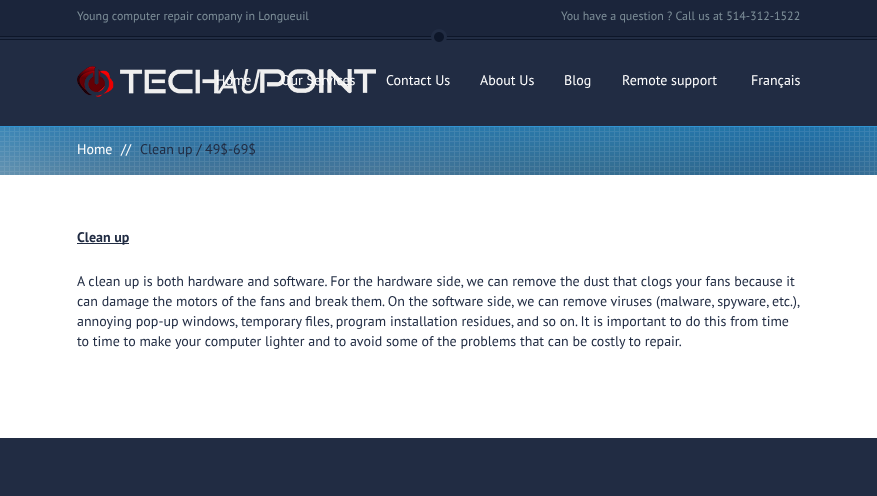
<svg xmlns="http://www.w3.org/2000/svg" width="877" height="496">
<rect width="100%" height="100%" fill="#fff"/>
<rect width="877" height="36" fill="#1b253b"/>
<text x="77" y="20" style="font-family:PT Sans;font-size:12px;fill:#7d8e98">Young computer repair company in Longueuil</text>
<text x="561" y="20" style="font-family:PT Sans;font-size:12px;fill:#7d8e98">You have a question ? Call us at 514-312-1522</text>
<rect y="37" width="877" height="89" fill="#212c43"/>
<rect y="36" width="877" height="1" fill="#0d1629"/>
<rect y="39" width="877" height="1" fill="#0d1629"/>
<image x="431" y="29" width="16" height="13" href="media/1.png"/>
<image x="77" y="66" width="299" height="31" href="media/2.png"/>
<text x="216" y="85" style="font-family:PT Sans;font-size:14px;fill:#fff">Home</text>
<text x="281" y="85" style="font-family:PT Sans;font-size:14px;fill:#fff">Our Services</text>
<text x="386" y="85" style="font-family:PT Sans;font-size:14px;fill:#fff">Contact Us</text>
<text x="480" y="85" style="font-family:PT Sans;font-size:14px;fill:#fff">About Us</text>
<text x="564" y="85" style="font-family:PT Sans;font-size:14px;fill:#fff">Blog</text>
<text x="622" y="85" style="font-family:PT Sans;font-size:14px;fill:#fff">Remote support</text>
<text x="751" y="85" style="font-family:PT Sans;font-size:14px;fill:#fff">Français</text>
<image x="0" y="126" width="877" height="49" href="media/3.png"/>
<image x="0" y="126" width="877" height="49" href="media/4.png"/>
<text x="77" y="154" style="font-family:PT Sans;font-size:14px;fill:#fff">Home</text>
<text x="121" y="154" style="font-family:PT Sans;font-size:14px;fill:#fff">//</text>
<text x="140" y="154" style="font-family:PT Sans;font-size:14px;fill:#212c43">Clean up / 49$-69$</text>
<rect x="77" y="243" width="52" height="1" fill="#212c43"/>
<text x="77" y="242" style="font-family:PT Sans;font-size:14px;font-weight:bold;fill:#212c43">Clean up</text>
<text x="77" y="286" style="font-family:PT Sans;font-size:14px;fill:#212c43">A clean up is both hardware and software. For the hardware side, we can remove the dust that clogs your fans because it</text>
<text x="77" y="306" style="font-family:PT Sans;font-size:14px;fill:#212c43">can damage the motors of the fans and break them. On the software side, we can remove viruses (malware, spyware, etc.),</text>
<text x="77" y="326" style="font-family:PT Sans;font-size:14px;fill:#212c43">annoying pop-up windows, temporary files, program installation residues, and so on. It is important to do this from time</text>
<text x="77" y="346" style="font-family:PT Sans;font-size:14px;fill:#212c43">to time to make your computer lighter and to avoid some of the problems that can be costly to repair.</text>
<rect y="438" width="877" height="58" fill="#212c43"/>
</svg>
